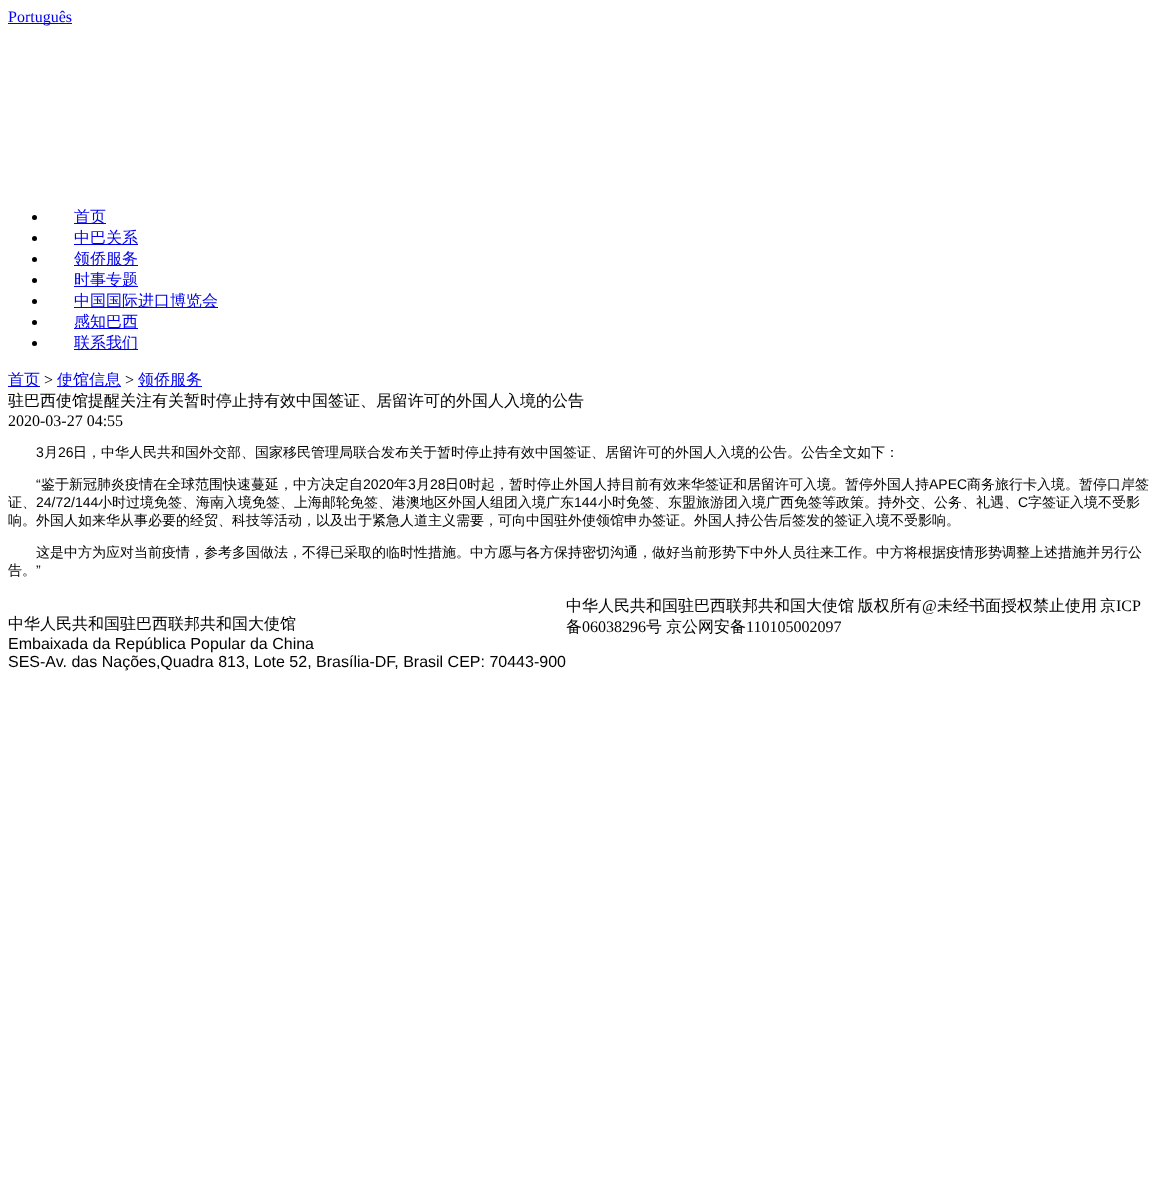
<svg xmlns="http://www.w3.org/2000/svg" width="1163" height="1193">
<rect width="100%" height="100%" fill="#fff"/>
<rect x="8" y="23" width="64" height="1" fill="#00e"/>
<text x="8" y="22" style="font-family:Liberation Serif;font-size:16px;fill:#00e">Português</text>
<circle cx="34.5" cy="217.5" r="2.5" fill="#000"/>
<rect x="74" y="223" width="32" height="1" fill="#00e"/>
<text x="74" y="222" style="font-family:WenQuanYi Zen Hei;font-size:16px;font-weight:500;fill:#00e">首页</text>
<circle cx="34.5" cy="238.5" r="2.5" fill="#000"/>
<rect x="74" y="244" width="64" height="1" fill="#00e"/>
<text x="74" y="243" style="font-family:WenQuanYi Zen Hei;font-size:16px;font-weight:500;fill:#00e">中巴关系</text>
<circle cx="34.5" cy="259.5" r="2.5" fill="#000"/>
<rect x="74" y="265" width="64" height="1" fill="#00e"/>
<text x="74" y="264" style="font-family:WenQuanYi Zen Hei;font-size:16px;font-weight:500;fill:#00e">领侨服务</text>
<circle cx="34.5" cy="280.5" r="2.5" fill="#000"/>
<rect x="74" y="286" width="64" height="1" fill="#00e"/>
<text x="74" y="285" style="font-family:WenQuanYi Zen Hei;font-size:16px;font-weight:500;fill:#00e">时事专题</text>
<circle cx="34.5" cy="301.5" r="2.5" fill="#000"/>
<rect x="74" y="307" width="144" height="1" fill="#00e"/>
<text x="74" y="306" style="font-family:WenQuanYi Zen Hei;font-size:16px;font-weight:500;fill:#00e">中国国际进口博览会</text>
<circle cx="34.5" cy="322.5" r="2.5" fill="#000"/>
<rect x="74" y="328" width="64" height="1" fill="#00e"/>
<text x="74" y="327" style="font-family:WenQuanYi Zen Hei;font-size:16px;font-weight:500;fill:#00e">感知巴西</text>
<circle cx="34.5" cy="343.5" r="2.5" fill="#000"/>
<rect x="74" y="349" width="64" height="1" fill="#00e"/>
<text x="74" y="348" style="font-family:WenQuanYi Zen Hei;font-size:16px;font-weight:500;fill:#00e">联系我们</text>
<rect x="8" y="386" width="32" height="1" fill="#00e"/>
<text x="8" y="385" style="font-family:WenQuanYi Zen Hei;font-size:16px;font-weight:500;fill:#00e">首页</text>
<text x="44" y="385" style="font-family:Liberation Serif;font-size:16px;fill:#000">&gt;</text>
<rect x="57" y="386" width="64" height="1" fill="#00e"/>
<text x="57" y="385" style="font-family:WenQuanYi Zen Hei;font-size:16px;font-weight:500;fill:#00e">使馆信息</text>
<text x="125" y="385" style="font-family:Liberation Serif;font-size:16px;fill:#000">&gt;</text>
<rect x="138" y="386" width="64" height="1" fill="#00e"/>
<text x="138" y="385" style="font-family:WenQuanYi Zen Hei;font-size:16px;font-weight:500;fill:#00e">领侨服务</text>
<text x="8" y="406" style="font-family:WenQuanYi Zen Hei;font-size:16px;font-weight:500;fill:#000">驻巴西使馆提醒关注有关暂时停止持有效中国签证、居留许可的外国人入境的公告</text>
<text x="8" y="426" style="font-family:Liberation Serif;font-size:16px;fill:#000">2020-03-27 04:55</text>
<text x="36" y="457" style="font-family:Liberation Sans;font-size:14px;fill:#000">3</text>
<text x="44" y="457" style="font-family:WenQuanYi Zen Hei;font-size:14px;font-weight:500;fill:#000">月</text>
<text x="58" y="457" style="font-family:Liberation Sans;font-size:14px;fill:#000">26</text>
<text x="73" y="457" style="font-family:WenQuanYi Zen Hei;font-size:14px;font-weight:500;fill:#000">日，中华人民共和国外交部、国家移民管理局联合发布关于暂时停止持有效中国签证、居留许可的外国人入境的公告。公告全文如下：</text>
<text x="36" y="489" style="font-family:Liberation Sans;font-size:14px;fill:#000">“</text>
<text x="41" y="489" style="font-family:WenQuanYi Zen Hei;font-size:14px;font-weight:500;fill:#000">鉴于新冠肺炎疫情在全球范围快速蔓延，中方决定自</text>
<text x="363" y="489" style="font-family:Liberation Sans;font-size:14px;fill:#000">2020</text>
<text x="394" y="489" style="font-family:WenQuanYi Zen Hei;font-size:14px;font-weight:500;fill:#000">年</text>
<text x="408" y="489" style="font-family:Liberation Sans;font-size:14px;fill:#000">3</text>
<text x="416" y="489" style="font-family:WenQuanYi Zen Hei;font-size:14px;font-weight:500;fill:#000">月</text>
<text x="430" y="489" style="font-family:Liberation Sans;font-size:14px;fill:#000">28</text>
<text x="445" y="489" style="font-family:WenQuanYi Zen Hei;font-size:14px;font-weight:500;fill:#000">日</text>
<text x="459" y="489" style="font-family:Liberation Sans;font-size:14px;fill:#000">0</text>
<text x="467" y="489" style="font-family:WenQuanYi Zen Hei;font-size:14px;font-weight:500;fill:#000">时起，暂时停止外国人持目前有效来华签证和居留许可入境。暂停外国人持</text>
<text x="929" y="489" style="font-family:Liberation Sans;font-size:14px;fill:#000">APEC</text>
<text x="967" y="489" style="font-family:WenQuanYi Zen Hei;font-size:14px;font-weight:500;fill:#000">商务旅行卡入境。暂停口岸签</text>
<text x="8" y="507" style="font-family:WenQuanYi Zen Hei;font-size:14px;font-weight:500;fill:#000">证、</text>
<text x="36" y="507" style="font-family:Liberation Sans;font-size:14px;fill:#000">24/72/144</text>
<text x="98" y="507" style="font-family:WenQuanYi Zen Hei;font-size:14px;font-weight:500;fill:#000">小时过境免签、海南入境免签、上海邮轮免签、港澳地区外国人组团入境广东</text>
<text x="574" y="507" style="font-family:Liberation Sans;font-size:14px;fill:#000">144</text>
<text x="598" y="507" style="font-family:WenQuanYi Zen Hei;font-size:14px;font-weight:500;fill:#000">小时免签、东盟旅游团入境广西免签等政策。持外交、公务、礼遇、</text>
<text x="1018" y="507" style="font-family:Liberation Sans;font-size:14px;fill:#000">C</text>
<text x="1028" y="507" style="font-family:WenQuanYi Zen Hei;font-size:14px;font-weight:500;fill:#000">字签证入境不受影</text>
<text x="8" y="525" style="font-family:WenQuanYi Zen Hei;font-size:14px;font-weight:500;fill:#000">响。外国人如来华从事必要的经贸、科技等活动，以及出于紧急人道主义需要，可向中国驻外使领馆申办签证。外国人持公告后签发的签证入境不受影响。</text>
<text x="36" y="557" style="font-family:WenQuanYi Zen Hei;font-size:14px;font-weight:500;fill:#000">这是中方为应对当前疫情，参考多国做法，不得已采取的临时性措施。中方愿与各方保持密切沟通，做好当前形势下中外人员往来工作。中方将根据疫情形势调整上述措施并另行公</text>
<text x="8" y="575" style="font-family:WenQuanYi Zen Hei;font-size:14px;font-weight:500;fill:#000">告。</text>
<text x="36" y="575" style="font-family:Liberation Sans;font-size:14px;fill:#000">”</text>
<text x="8" y="629" style="font-family:WenQuanYi Zen Hei;font-size:16px;font-weight:500;fill:#000">中华人民共和国驻巴西联邦共和国大使馆</text>
<text x="8" y="649" style="font-family:Liberation Sans;font-size:16px;fill:#000">Embaixada da República Popular da China</text>
<text x="8" y="667" style="font-family:Liberation Sans;font-size:16px;fill:#000">SES-Av. das Nações,Quadra 813, Lote 52, Brasília-DF, Brasil CEP: 70443-900</text>
<text x="566" y="611" word-spacing="-1" style="font-family:WenQuanYi Zen Hei;font-size:16px;font-weight:500;fill:#000">中华人民共和国驻巴西联邦共和国大使馆 版权所有</text>
<text x="922" y="611" style="font-family:Liberation Serif;font-size:16px;fill:#000">@</text>
<text x="937" y="611" style="font-family:WenQuanYi Zen Hei;font-size:16px;font-weight:500;fill:#000">未经书面授权禁止使用</text>
<text x="1100" y="611" style="font-family:WenQuanYi Zen Hei;font-size:16px;font-weight:500;fill:#000">京</text>
<text x="1116" y="611" style="font-family:Liberation Serif;font-size:16px;fill:#000">ICP</text>
<text x="566" y="632" style="font-family:WenQuanYi Zen Hei;font-size:16px;font-weight:500;fill:#000">备</text>
<text x="582" y="632" style="font-family:Liberation Serif;font-size:16px;fill:#000">06038296</text>
<text x="646" y="632" style="font-family:WenQuanYi Zen Hei;font-size:16px;font-weight:500;fill:#000">号</text>
<text x="666" y="632" style="font-family:WenQuanYi Zen Hei;font-size:16px;font-weight:500;fill:#000">京公网安备</text>
<text x="746" y="632" style="font-family:Liberation Serif;font-size:16px;fill:#000">110105002097</text>
</svg>
